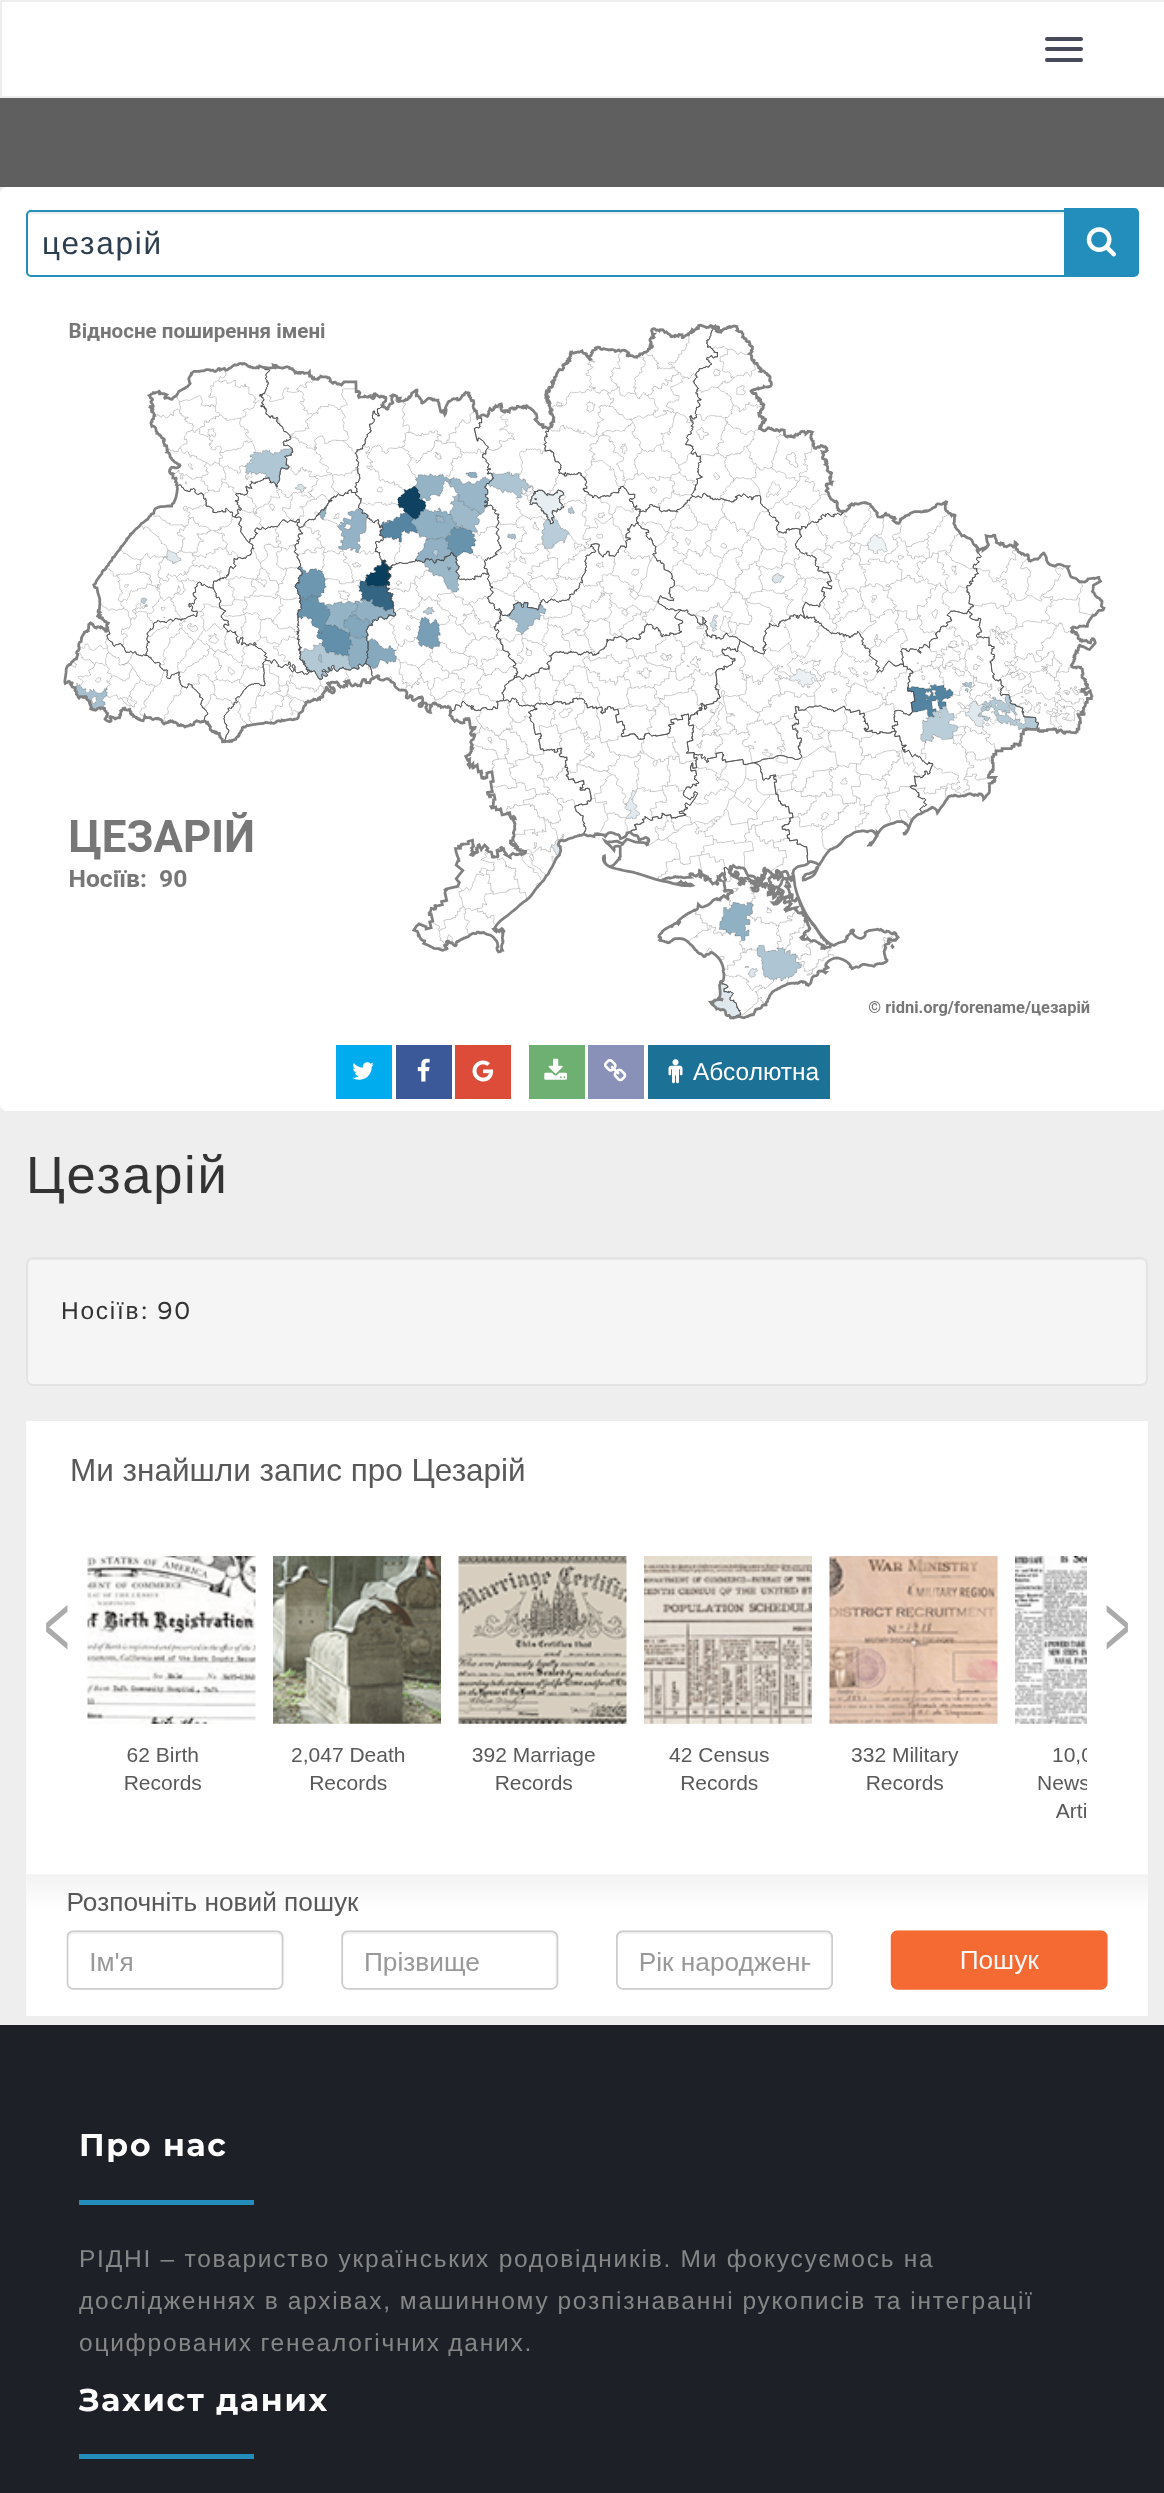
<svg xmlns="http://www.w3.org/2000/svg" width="1164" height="2493">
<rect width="100%" height="100%" fill="#eee"/>
<rect x="2" y="2" width="1162" height="94" fill="#fff"/>
<rect x="1045" y="37" width="38" height="4" rx="2" fill="#474b59"/>
<rect x="1045" y="47" width="38" height="4" rx="2" fill="#474b59"/>
<rect x="1045" y="58" width="38" height="4" rx="2" fill="#474b59"/>
<rect y="98" width="1164" height="89" fill="#5f5f5f"/>
<rect y="187" width="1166" height="924" rx="7" fill="#fff"/>
<path d="M32 214h1102c2 0 4 1 4 3c0-3-1-5-4-5h-1102c-3 0-4 2-4 5c0-2 2-3 4-3z" fill="#ececec"/>
<rect x="27" y="211" width="1111" height="65" rx="4" fill="none" stroke="#238ebc" stroke-width="2"/>
<text x="42" y="254" style="font-family:Liberation Sans;font-size:31.5px;letter-spacing:1.75px;fill:#2c3e50">цезарій</text>
<path d="M1064 208h70c3 0 5 2 5 5v57c0 3-2 5-5 5h-70z" fill="#238ebc"/>
<rect x="1064" y="208" width="75" height="67" rx="7" fill="#238ebc"/>
<image x="1086" y="227" width="30" height="30" href="media/1.png"/>
<image x="63" y="323" width="1043" height="697" href="media/2.png"/>
<rect x="336" y="1045" width="56" height="54" fill="#00aced"/>
<image x="352" y="1062" width="22" height="18" href="media/3.png"/>
<rect x="396" y="1045" width="56" height="54" fill="#3b5998"/>
<image x="417" y="1058" width="13" height="24" href="media/4.png"/>
<rect x="455" y="1045" width="56" height="54" fill="#dd4b39"/>
<image x="472" y="1060" width="22" height="22" href="media/5.png"/>
<rect x="529" y="1045" width="56" height="54" fill="#6db072"/>
<image x="544" y="1058" width="23" height="22" href="media/6.png"/>
<rect x="588" y="1045" width="56" height="54" fill="#8991b8"/>
<image x="604" y="1059" width="23" height="23" href="media/7.png"/>
<rect x="648" y="1045" width="182" height="54" fill="#1c7196"/>
<image x="668" y="1059" width="15" height="25" href="media/8.png"/>
<text x="693" y="1080" style="font-family:Liberation Sans;font-size:24.5px;fill:#fff">Абсолютна</text>
<text x="26" y="1193" style="font-family:Liberation Sans;font-size:52.5px;letter-spacing:1.75px;fill:#333">Цезарій</text>
<rect x="26" y="1257" width="1122" height="129" rx="7" fill="#f5f5f5"/>
<path d="M33 1260h1108c3 0 5 2 5 5v-2c0-3-2-5-5-5h-1108c-3 0-5 2-5 5v2c0-3 2-5 5-5z" fill="#e9e9e9"/>
<rect x="27" y="1258" width="1120" height="127" rx="6" fill="none" stroke="#e3e3e3" stroke-width="2"/>
<text x="61" y="1319" style="font-family:Liberation Sans;font-size:24.5px;letter-spacing:1.75px;fill:#333">Носіїв</text>
<text x="141" y="1319" style="font-family:Varela Round;font-size:24.5px;letter-spacing:1.75px;fill:#333">: 90</text>
<image x="26" y="1421" width="1122" height="595" href="media/9.png"/>
<rect y="2025" width="1164" height="468" fill="#1d2026"/>
<text x="79" y="2156" style="font-family:Montserrat;font-size:31.5px;font-weight:bold;letter-spacing:1.75px;fill:#fff">Про нас</text>
<rect x="79" y="2200" width="175" height="5" fill="#238ebc"/>
<text x="79" y="2267" style="font-family:Liberation Sans;font-size:24.5px;letter-spacing:1.75px;fill:#858686">РІДНІ – товариство українських родовідників. Ми фокусуємось на</text>
<text x="79" y="2309" word-spacing="-0.5" style="font-family:Liberation Sans;font-size:24.5px;letter-spacing:1.75px;fill:#858686">дослідженнях в архівах, машинному розпізнаванні рукописів та інтеграції</text>
<text x="79" y="2351" word-spacing="-1" style="font-family:Liberation Sans;font-size:24.5px;letter-spacing:1.75px;fill:#858686">оцифрованих генеалогічних даних.</text>
<text x="79" y="2411" style="font-family:Montserrat;font-size:31.5px;font-weight:bold;letter-spacing:1.75px;fill:#fff">Захист даних</text>
<rect x="79" y="2454" width="175" height="5" fill="#238ebc"/>
</svg>
